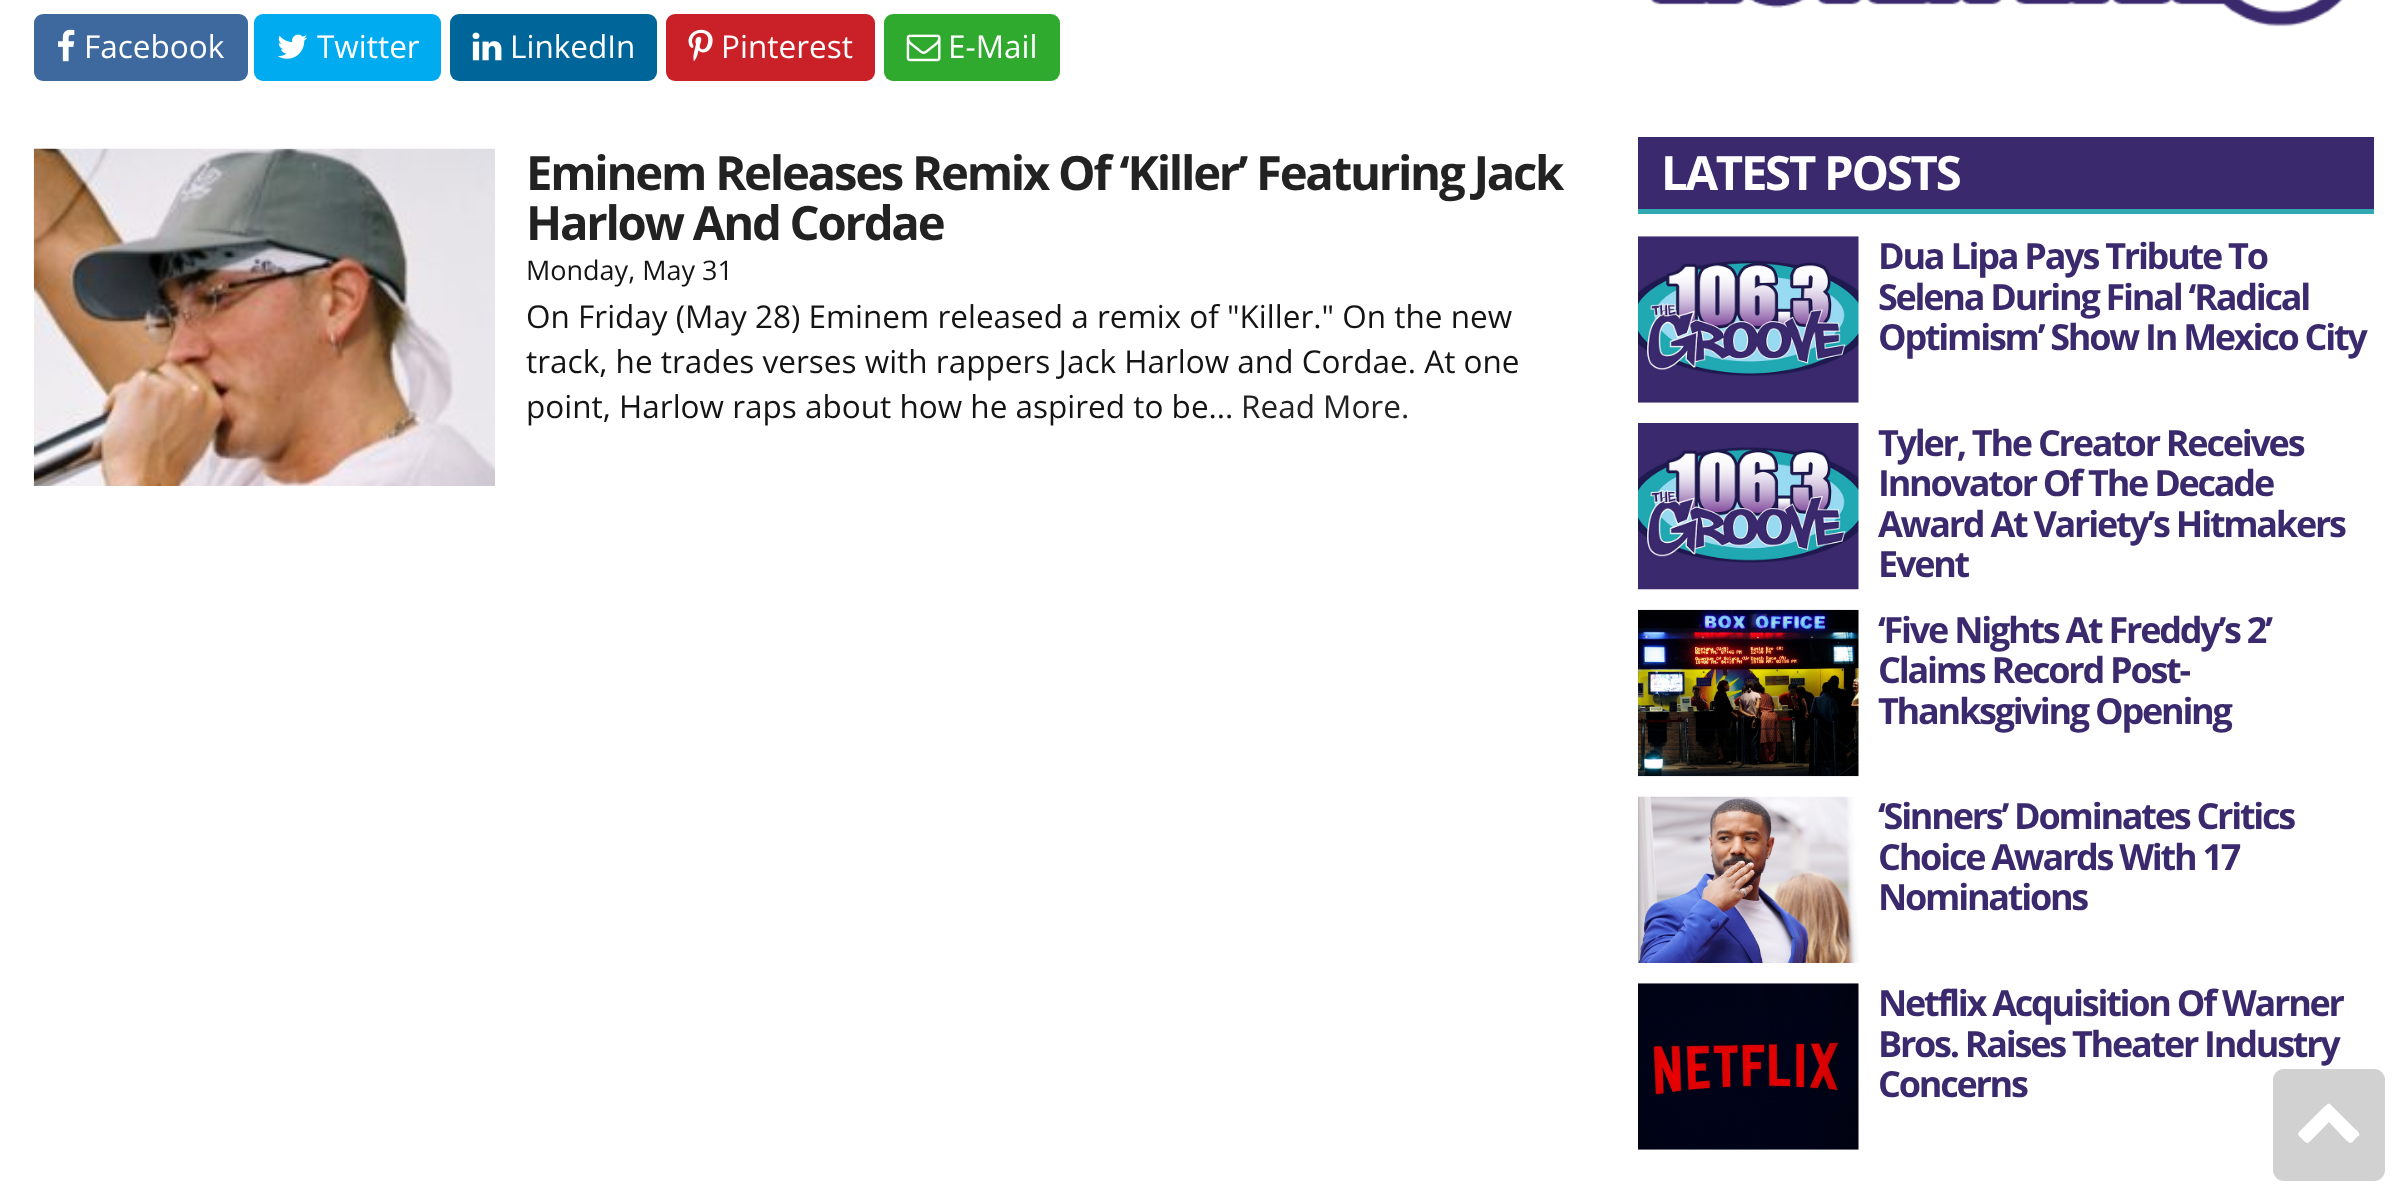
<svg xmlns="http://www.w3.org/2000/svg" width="2406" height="1203">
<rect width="100%" height="100%" fill="#fff"/>
<rect x="34" y="14" width="214" height="67" rx="9" fill="#3d699e"/>
<image x="58" y="29" width="17" height="33" href="media/1.png"/>
<text x="84" y="58" style="font-family:Open Sans;font-size:31.5px;fill:#fff">Facebook</text>
<rect x="254" y="14" width="187" height="67" rx="9" fill="#00abf0"/>
<image x="277" y="34" width="31" height="25" href="media/2.png"/>
<text x="317" y="58" style="font-family:Open Sans;font-size:31.5px;fill:#fff">Twitter</text>
<rect x="450" y="14" width="207" height="67" rx="9" fill="#069"/>
<image x="472" y="32" width="30" height="29" href="media/3.png"/>
<text x="510" y="58" style="font-family:Open Sans;font-size:31.5px;fill:#fff">LinkedIn</text>
<rect x="666" y="14" width="209" height="67" rx="9" fill="#ca2027"/>
<image x="688" y="29" width="25" height="33" href="media/4.png"/>
<text x="721" y="58" style="font-family:Open Sans;font-size:31.5px;fill:#fff">Pinterest</text>
<rect x="884" y="14" width="176" height="67" rx="9" fill="#2fa92e"/>
<image x="906" y="34" width="35" height="28" href="media/5.png"/>
<text x="948" y="58" style="font-family:Open Sans;font-size:31.5px;fill:#fff">E-Mail</text>
<image x="33" y="148" width="462" height="338" href="media/6.png"/>
<text x="526" y="190" style="font-family:Open Sans;font-size:47.25px;font-weight:bold;letter-spacing:-2.25px;fill:#222">Eminem Releases Remix Of ‘Killer’ Featuring Jack</text>
<text x="526" y="240" style="font-family:Open Sans;font-size:47.25px;font-weight:bold;letter-spacing:-2.25px;fill:#222">Harlow And Cordae</text>
<text x="526" y="280" style="font-family:Open Sans;font-size:27px;fill:#141414">Monday, May 31</text>
<text x="526" y="328" style="font-family:Open Sans;font-size:31.5px;fill:#141414">On Friday (May 28) Eminem released a remix of "Killer." On the new</text>
<text x="526" y="373" style="font-family:Open Sans;font-size:31.5px;fill:#141414">track, he trades verses with rappers Jack Harlow and Cordae. At one</text>
<text x="526" y="418" style="font-family:Open Sans;font-size:31.5px;fill:#141414">point, Harlow raps about how he aspired to be...</text>
<text x="1241" y="418" style="font-family:Open Sans;font-size:31.5px;fill:#222">Read More.</text>
<image x="1650" y="0" width="693" height="27" href="media/7.png"/>
<rect x="1638" y="137" width="736" height="72" fill="#3a296d"/>
<rect x="1638" y="209" width="736" height="5" fill="#31a9b2"/>
<text x="1661" y="190" style="font-family:Open Sans;font-size:47.25px;font-weight:bold;letter-spacing:-2.25px;fill:#fff">LATEST POSTS</text>
<image x="1638" y="236" width="221" height="167" href="media/8.png"/>
<text x="1878" y="269" style="font-family:Open Sans;font-size:36px;font-weight:bold;letter-spacing:-2.25px;fill:#3a296d">Dua Lipa Pays Tribute To</text>
<text x="1878" y="310" style="font-family:Open Sans;font-size:36px;font-weight:bold;letter-spacing:-2.25px;fill:#3a296d">Selena During Final ‘Radical</text>
<text x="1878" y="350" style="font-family:Open Sans;font-size:36px;font-weight:bold;letter-spacing:-2.25px;fill:#3a296d">Optimism’ Show In Mexico City</text>
<image x="1638" y="423" width="221" height="167" href="media/9.png"/>
<text x="1878" y="456" style="font-family:Open Sans;font-size:36px;font-weight:bold;letter-spacing:-2.25px;fill:#3a296d">Tyler, The Creator Receives</text>
<text x="1878" y="496" style="font-family:Open Sans;font-size:36px;font-weight:bold;letter-spacing:-2.25px;fill:#3a296d">Innovator Of The Decade</text>
<text x="1878" y="537" style="font-family:Open Sans;font-size:36px;font-weight:bold;letter-spacing:-2.25px;fill:#3a296d">Award At Variety’s Hitmakers</text>
<text x="1878" y="577" style="font-family:Open Sans;font-size:36px;font-weight:bold;letter-spacing:-2.25px;fill:#3a296d">Event</text>
<image x="1638" y="609" width="221" height="168" href="media/10.png"/>
<text x="1878" y="643" style="font-family:Open Sans;font-size:36px;font-weight:bold;letter-spacing:-2.25px;fill:#3a296d">‘Five Nights At Freddy’s 2’</text>
<text x="1878" y="683" style="font-family:Open Sans;font-size:36px;font-weight:bold;letter-spacing:-2.25px;fill:#3a296d">Claims Record Post-</text>
<text x="1878" y="724" style="font-family:Open Sans;font-size:36px;font-weight:bold;letter-spacing:-2.25px;fill:#3a296d">Thanksgiving Opening</text>
<image x="1638" y="796" width="221" height="167" href="media/11.png"/>
<text x="1878" y="829" style="font-family:Open Sans;font-size:36px;font-weight:bold;letter-spacing:-2.25px;fill:#3a296d">‘Sinners’ Dominates Critics</text>
<text x="1878" y="870" style="font-family:Open Sans;font-size:36px;font-weight:bold;letter-spacing:-2.25px;fill:#3a296d">Choice Awards With 17</text>
<text x="1878" y="910" style="font-family:Open Sans;font-size:36px;font-weight:bold;letter-spacing:-2.25px;fill:#3a296d">Nominations</text>
<image x="1638" y="983" width="221" height="167" href="media/12.png"/>
<text x="1878" y="1016" style="font-family:Open Sans;font-size:36px;font-weight:bold;letter-spacing:-2.25px;fill:#3a296d">Netflix Acquisition Of Warner</text>
<text x="1878" y="1057" style="font-family:Open Sans;font-size:36px;font-weight:bold;letter-spacing:-2.25px;fill:#3a296d">Bros. Raises Theater Industry</text>
<text x="1878" y="1097" style="font-family:Open Sans;font-size:36px;font-weight:bold;letter-spacing:-2.25px;fill:#3a296d">Concerns</text>
<rect x="2273" y="1069" width="112" height="112" rx="11" fill="#d1d1d1"/>
<path d="M2358 1136c-7 7-6 10-13 3l-16-17c-3 3-19 20-21 21c-2 0-4-2-5-3c-1-2-7-5-4-8l23-23c8-7 6-7 13 0l19 19c1 1 7 5 5 8z" fill="#fff"/>
</svg>
